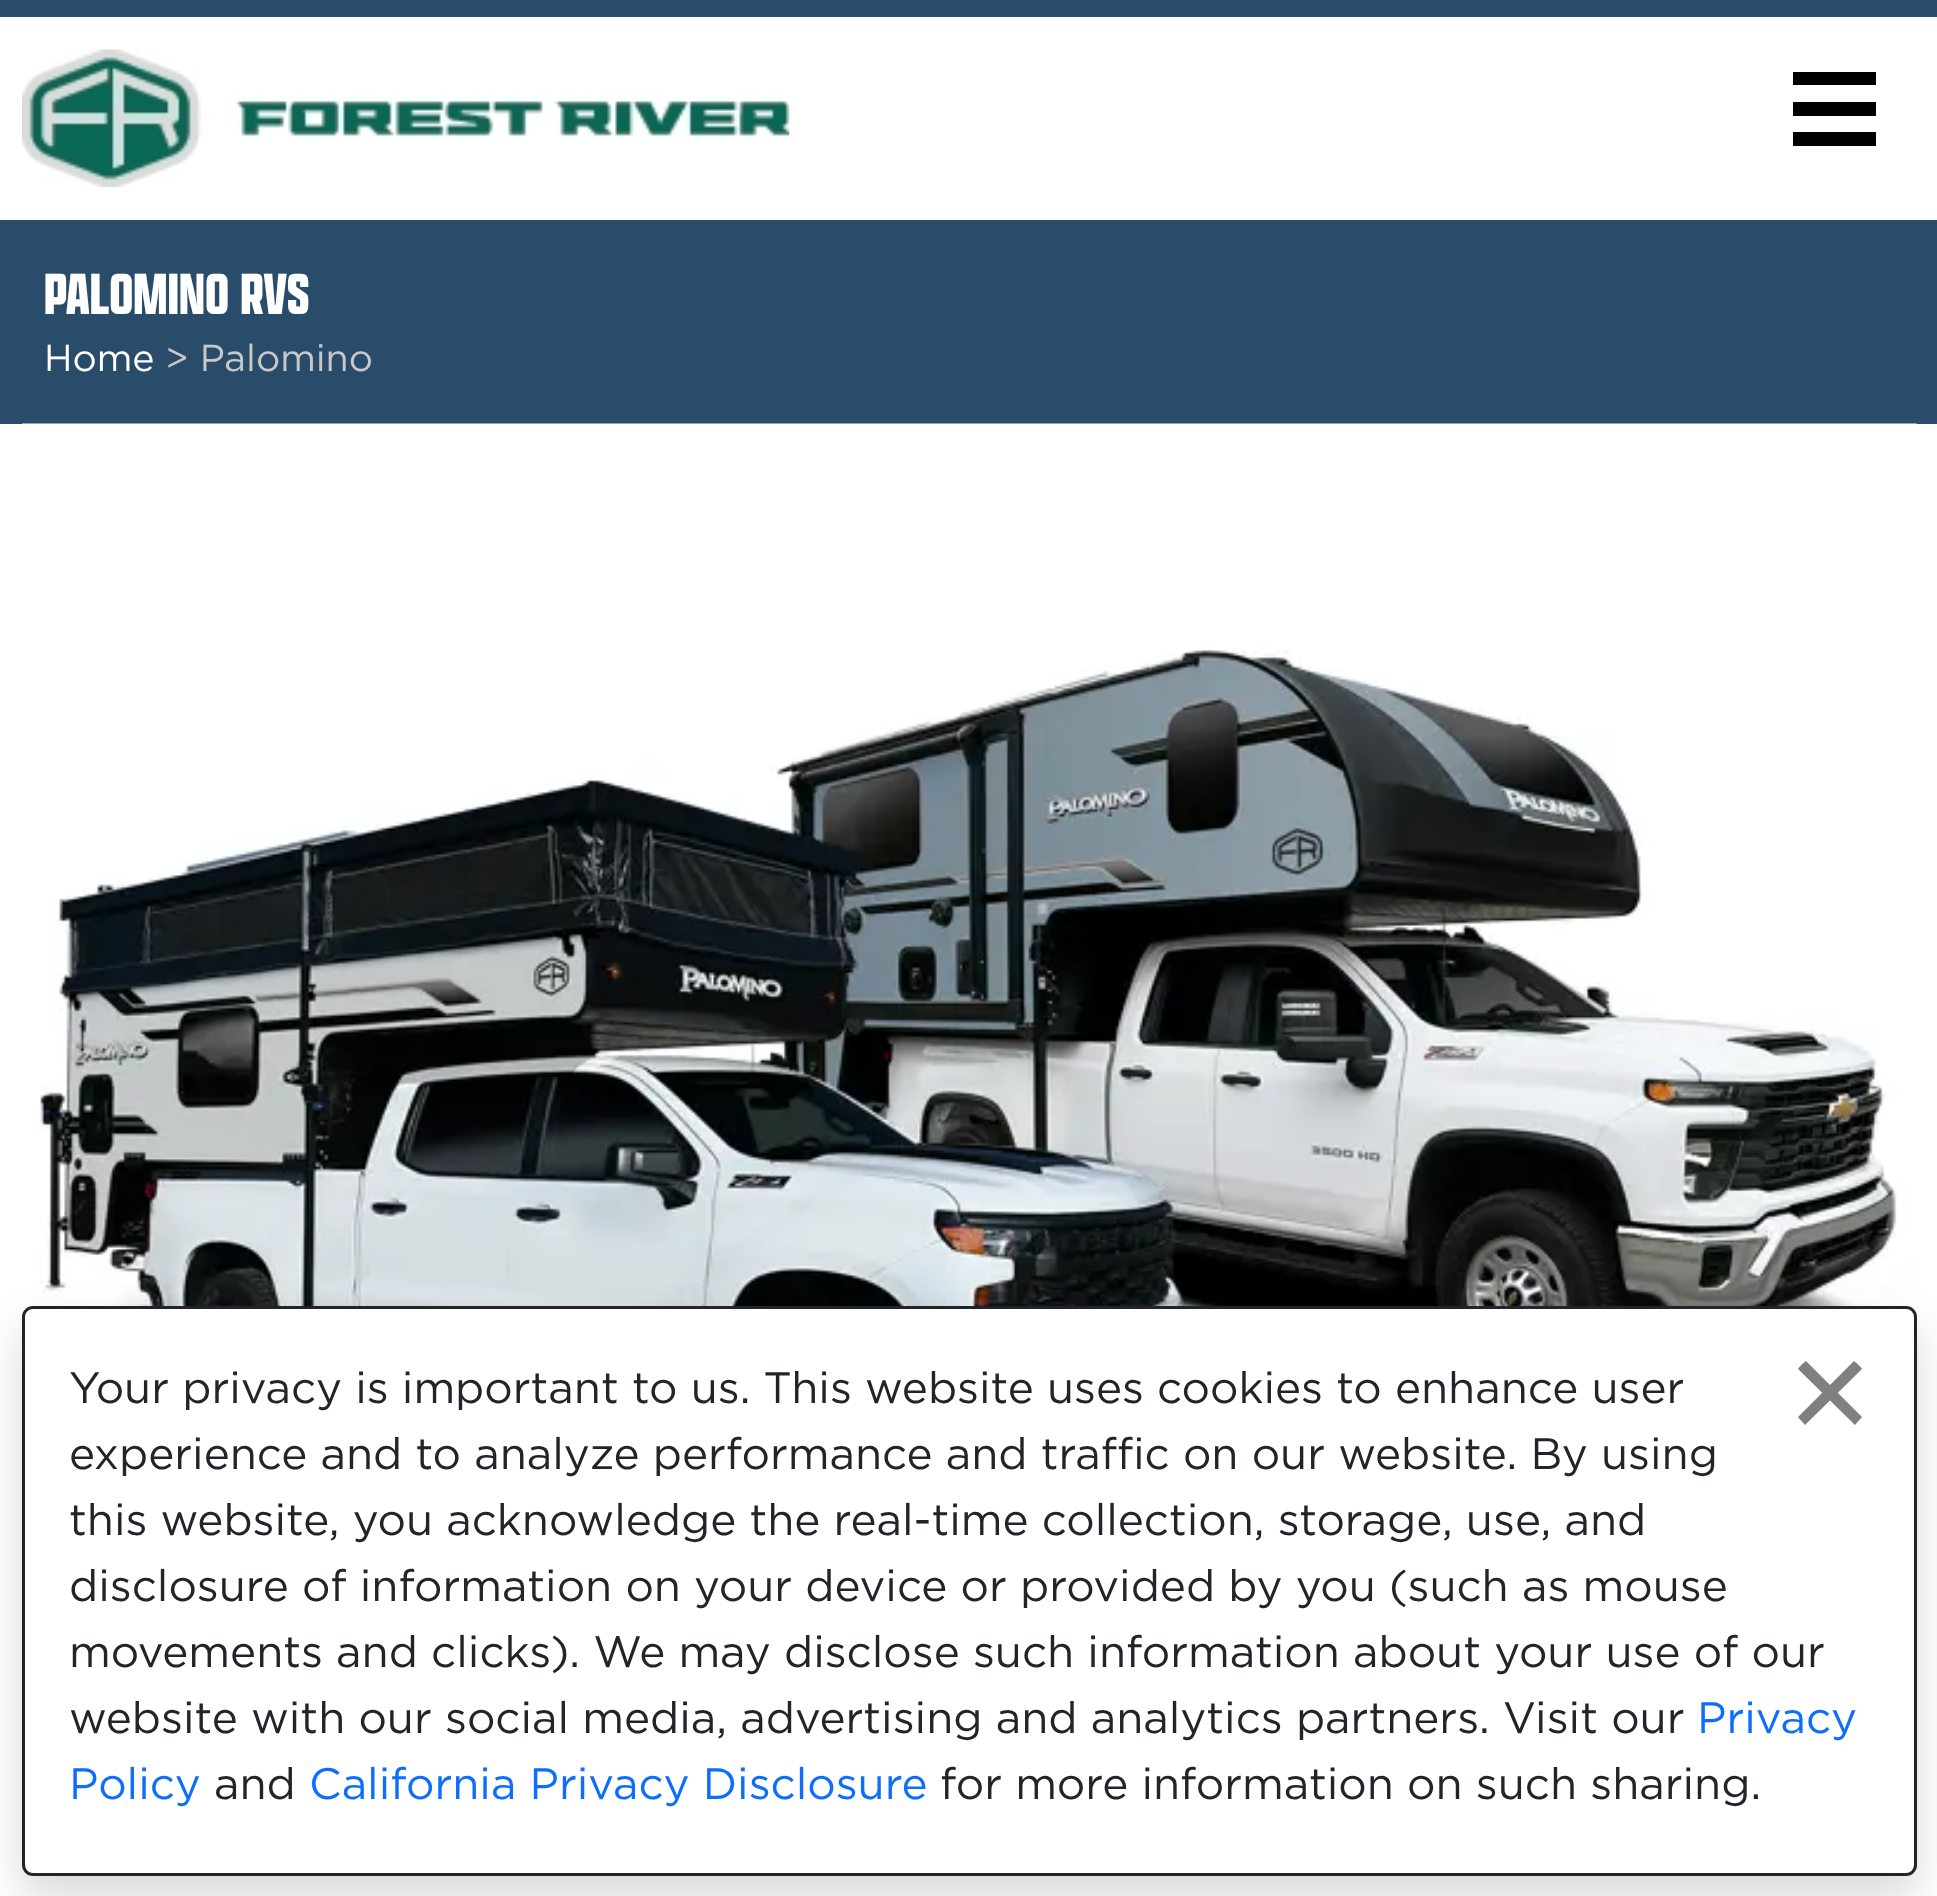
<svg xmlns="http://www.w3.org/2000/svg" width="1937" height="1896">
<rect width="100%" height="100%" fill="#fff"/>
<rect width="1937" height="17" fill="#294c6b"/>
<image x="22" y="49" width="768" height="138" href="media/1.png"/>
<rect x="1793" y="72" width="83" height="13" fill="#000"/>
<rect x="1793" y="102" width="83" height="14" fill="#000"/>
<rect x="1793" y="132" width="83" height="14" fill="#000"/>
<rect y="220" width="1937" height="204" fill="#294c6b"/>
<text x="44" y="314" style="font-family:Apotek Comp;font-size:62px;font-weight:bold;fill:#fff">PALOMINO RVS</text>
<text x="44" y="371" style="font-family:Gotham;font-size:37.5px;fill:#fff">Home</text>
<text x="165" y="371" style="font-family:Gotham;font-size:37.5px;fill:#c8c8c8">&gt; Palomino</text>
<image x="22" y="423" width="1895" height="894" href="media/2.png"/>
<rect x="22" y="1328" width="1895" height="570" rx="11" fill="#00000026" filter="blur(22px)"/>
<rect x="23.5" y="1307.5" width="1892" height="567" rx="9.5" fill="#fff" stroke="#212529" stroke-width="3"/>
<path d="M1805 1425c-2-3-5-5-7-8l56-56c3 2 6 5 8 8z" fill="#808080"/>
<path d="M1798 1369c2-3 5-6 8-8l56 56c-2 3-5 5-7 8z" fill="#808080"/>
<text x="69" y="1403" style="font-family:Gotham;font-size:44px;fill:#212529">Your privacy is important to us. This website uses cookies to enhance user</text>
<text x="69" y="1469" style="font-family:Gotham;font-size:44px;fill:#212529">experience and to analyze performance and traffic on our website. By using</text>
<text x="69" y="1535" style="font-family:Gotham;font-size:44px;fill:#212529">this website, you acknowledge the real-time collection, storage, use, and</text>
<text x="69" y="1601" style="font-family:Gotham;font-size:44px;fill:#212529">disclosure of information on your device or provided by you (such as mouse</text>
<text x="69" y="1667" style="font-family:Gotham;font-size:44px;fill:#212529">movements and clicks). We may disclose such information about your use of our</text>
<text x="69" y="1733" style="font-family:Gotham;font-size:44px;fill:#212529">website with our social media, advertising and analytics partners. Visit our</text>
<text x="1697" y="1733" style="font-family:Gotham;font-size:44px;fill:#0d6efd">Privacy</text>
<text x="69" y="1799" style="font-family:Gotham;font-size:44px;fill:#0d6efd">Policy</text>
<text x="214" y="1799" style="font-family:Gotham;font-size:44px;fill:#212529">and</text>
<text x="309" y="1799" style="font-family:Gotham;font-size:44px;fill:#0d6efd">California Privacy Disclosure</text>
<text x="940" y="1799" style="font-family:Gotham;font-size:44px;fill:#212529">for more information on such sharing.</text>
</svg>
